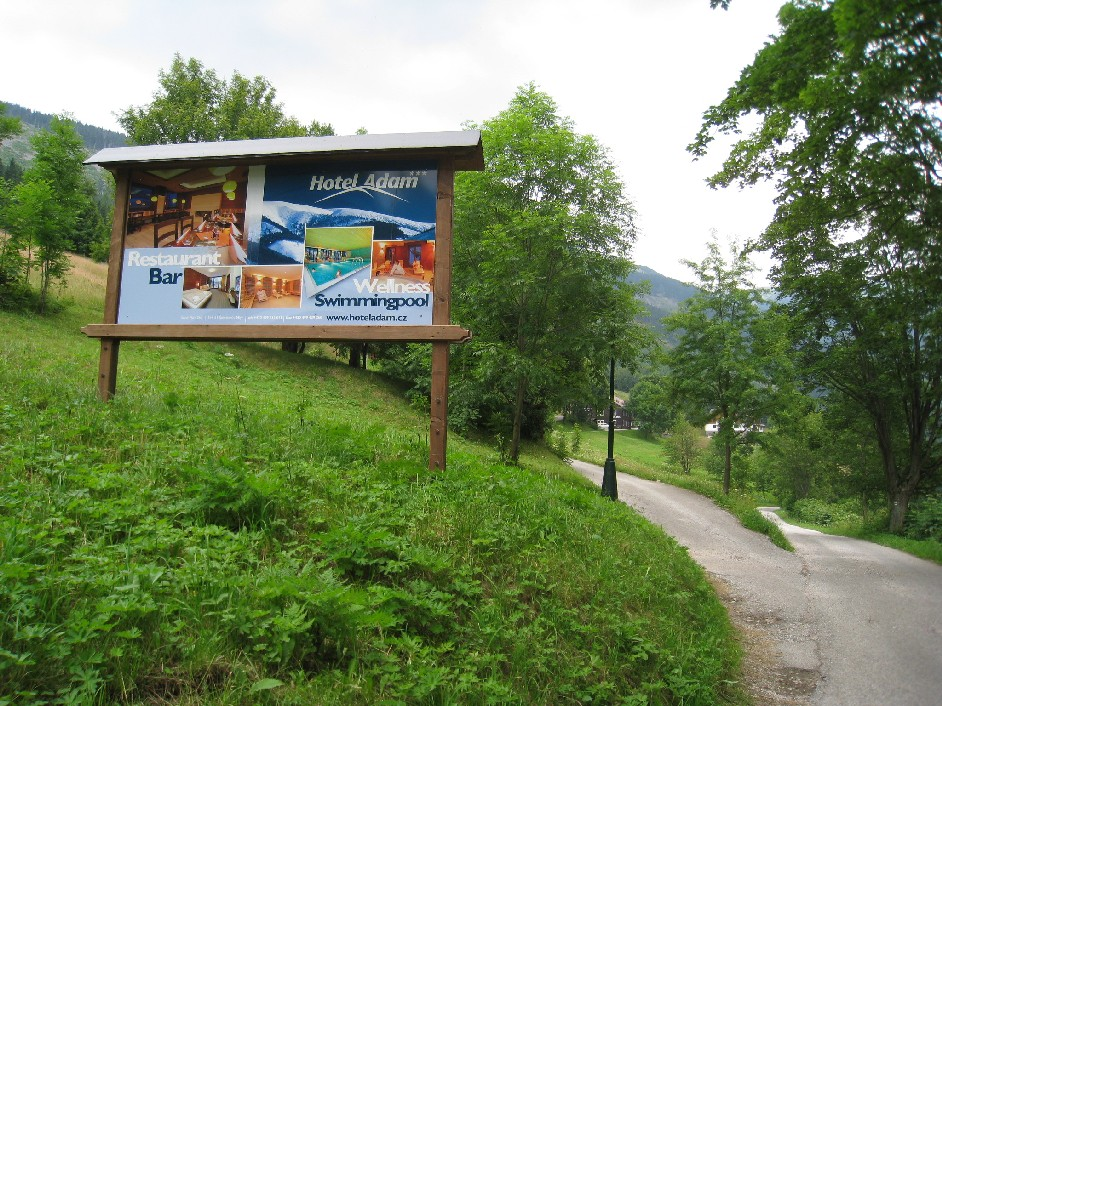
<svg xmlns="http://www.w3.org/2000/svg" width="1117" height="1199">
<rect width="100%" height="100%" fill="#fff"/>
<image x="0" y="0" width="942" height="706" href="media/1.png"/>
</svg>
